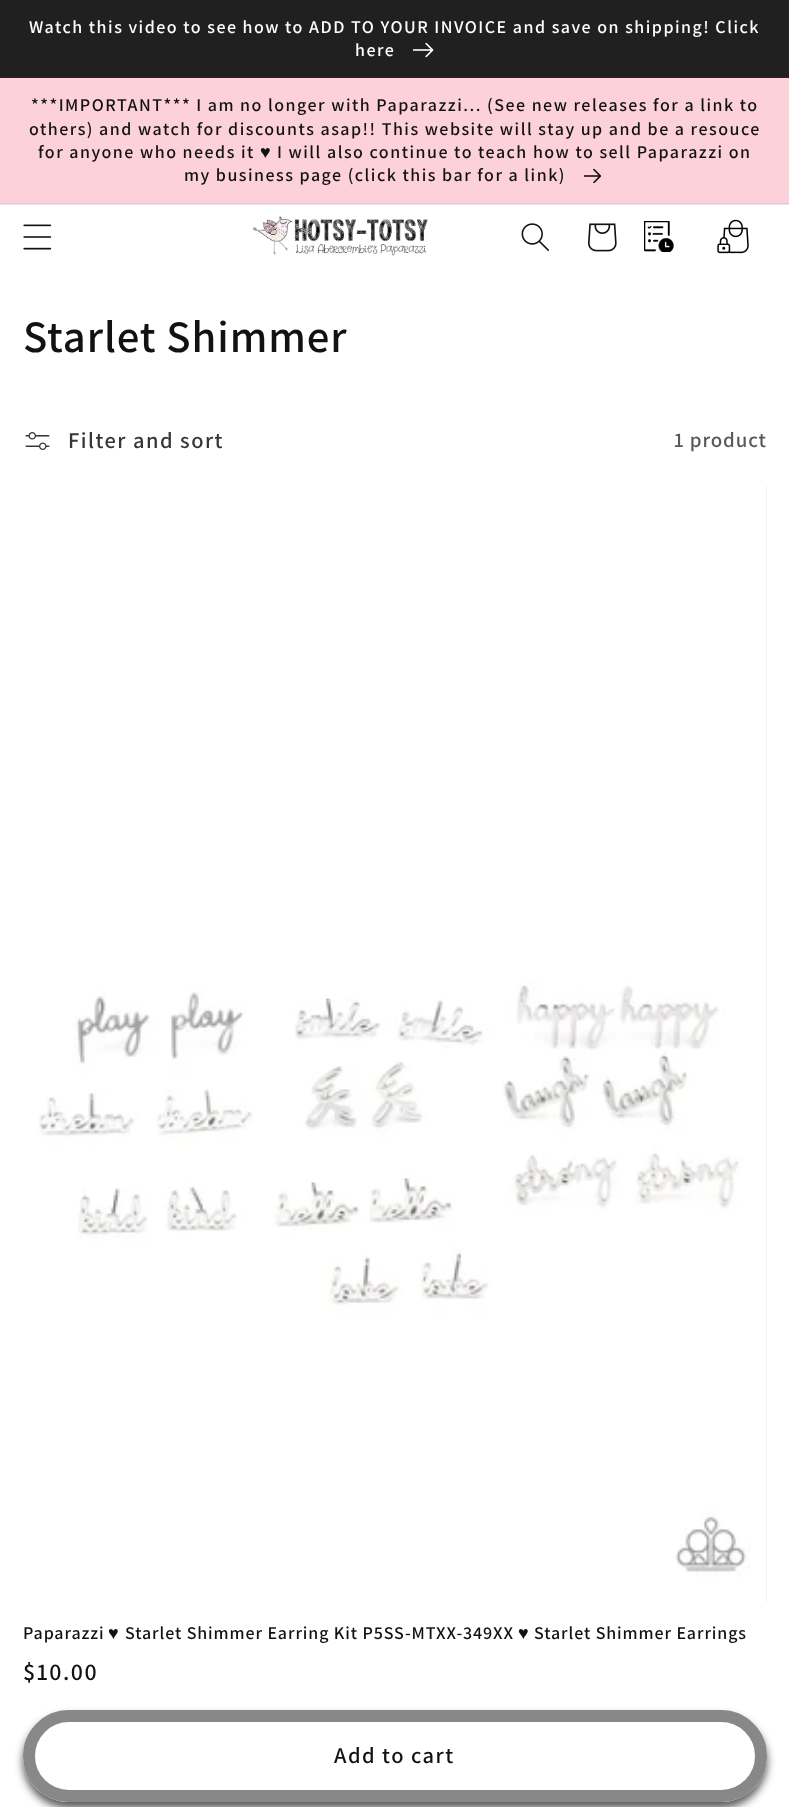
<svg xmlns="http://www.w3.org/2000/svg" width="789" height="1807">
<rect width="100%" height="100%" fill="#fff"/>
<rect y="204" width="789" height="1" fill="#ececec"/>
<rect y="77" width="789" height="1" fill="#252525"/>
<rect width="789" height="77" fill="#202020"/>
<text x="29" y="33" style="font-family:Assistant;font-size:18px;font-weight:600;letter-spacing:1.5px;fill:#fff">Watch this video to see how to ADD TO YOUR INVOICE and save on shipping! Click</text>
<text x="355" y="56" style="font-family:Assistant;font-size:18px;font-weight:600;letter-spacing:1.5px;fill:#fff">here</text>
<image x="413" y="42" width="21" height="16" href="media/1.png"/>
<rect y="78" width="789" height="125" fill="#fcd1da"/>
<rect y="203" width="789" height="1" fill="#e9c2ca"/>
<text x="31" y="111" style="font-family:Assistant;font-size:18px;font-weight:600;letter-spacing:1.5px;fill:#121212">***IMPORTANT*** I am no longer with Paparazzi... (See new releases for a link to</text>
<text x="29" y="135" style="font-family:Assistant;font-size:18px;font-weight:600;letter-spacing:1.5px;fill:#121212">others) and watch for discounts asap!! This website will stay up and be a resouce</text>
<text x="38" y="158" style="font-family:Assistant;font-size:18px;font-weight:600;letter-spacing:1.5px;fill:#121212">for anyone who needs it</text>
<text x="260" y="158" style="font-family:Liberation Sans;font-size:18px;font-weight:bold;letter-spacing:1.5px;fill:#121212">♥</text>
<text x="277" y="158" style="font-family:Assistant;font-size:18px;font-weight:600;letter-spacing:1.5px;fill:#121212">I will also continue to teach how to sell Paparazzi on</text>
<text x="184" y="181" style="font-family:Assistant;font-size:18px;font-weight:600;letter-spacing:1.5px;fill:#121212">my business page (click this bar for a link)</text>
<image x="584" y="168" width="18" height="15" href="media/2.png"/>
<image x="23" y="224" width="29" height="26" href="media/3.png"/>
<image x="252" y="216" width="176" height="40" href="media/4.png"/>
<image x="521" y="223" width="28" height="28" href="media/5.png"/>
<image x="588" y="223" width="29" height="29" href="media/6.png"/>
<image x="644" y="221" width="30" height="31" href="media/7.png"/>
<image x="717" y="219" width="32" height="35" href="media/8.png"/>
<text x="23" y="352" style="font-family:Assistant;font-size:45px;font-weight:600;letter-spacing:0.9px;fill:#121212">Starlet Shimmer</text>
<image x="25" y="432" width="25" height="18" href="media/9.png"/>
<text x="68" y="448" style="font-family:Assistant;font-size:22.5px;font-weight:600;letter-spacing:1.5px;fill:#363636">Filter and sort</text>
<text x="674" y="447" style="font-family:Assistant;font-size:21px;font-weight:600;letter-spacing:0.9px;fill:#595959">1 product</text>
<rect x="766" y="486" width="1" height="1116" fill="#f3f3f3"/>
<image x="23" y="486" width="743" height="1116" href="media/10.png"/>
<text x="23" y="1639" style="font-family:Assistant;font-size:18px;font-weight:600;letter-spacing:0.9px;fill:#121212">Paparazzi</text>
<text x="108" y="1639" style="font-family:Liberation Sans;font-size:18px;font-weight:bold;letter-spacing:0.9px;fill:#121212">♥</text>
<text x="125" y="1639" style="font-family:Assistant;font-size:18px;font-weight:600;letter-spacing:0.9px;fill:#121212">Starlet Shimmer Earring Kit P5SS-MTXX-349XX</text>
<text x="518" y="1639" style="font-family:Liberation Sans;font-size:18px;font-weight:bold;letter-spacing:0.9px;fill:#121212">♥</text>
<text x="534" y="1639" style="font-family:Assistant;font-size:18px;font-weight:600;letter-spacing:0.9px;fill:#121212">Starlet Shimmer Earrings</text>
<text x="23" y="1680" style="font-family:Assistant;font-size:24px;font-weight:600;letter-spacing:1.5px;fill:#121212">$10.00</text>
<rect x="23" y="1716" width="744" height="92" rx="46" fill="#121212b3" filter="blur(4px)"/>
<rect x="23" y="1710" width="744" height="92" rx="46" fill="#fff"/>
<rect x="29" y="1716" width="732" height="80" rx="40" fill="none" stroke="#fff" stroke-width="12"/>
<rect x="29" y="1716" width="732" height="80" rx="40" fill="none" stroke="#12121280" stroke-width="12"/>
<text x="334" y="1763" style="font-family:Assistant;font-size:22.5px;font-weight:600;letter-spacing:1.5px;fill:#121212">Add to cart</text>
</svg>
